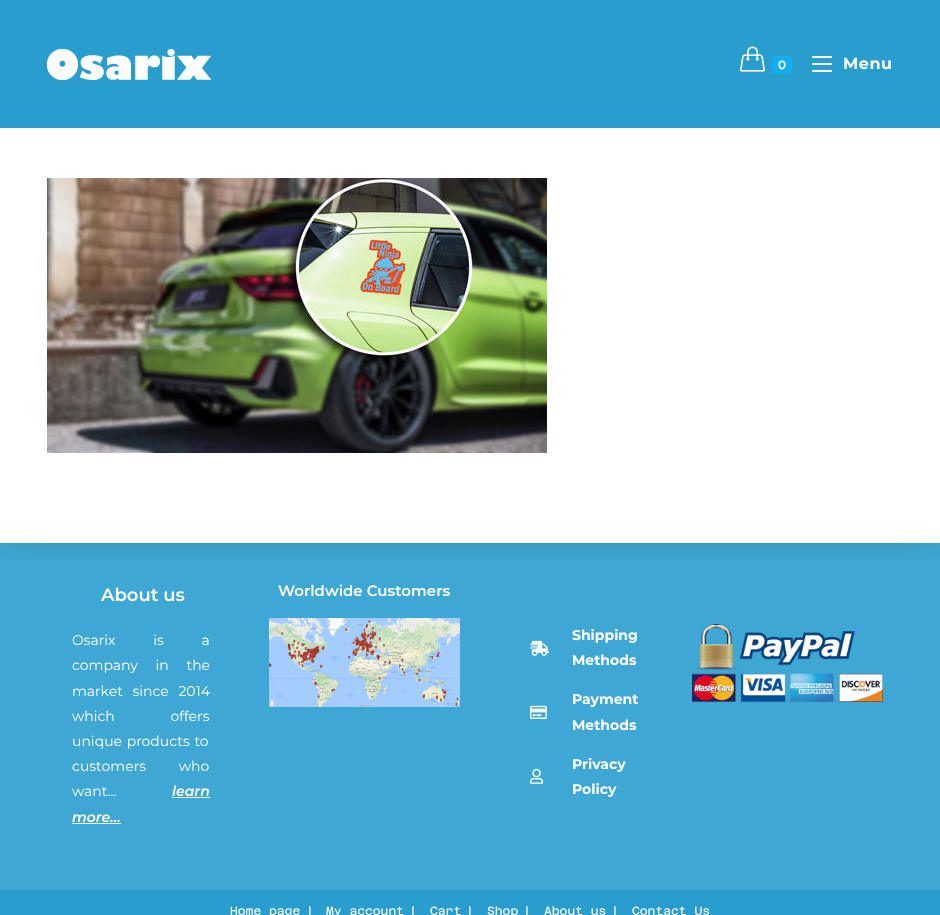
<svg xmlns="http://www.w3.org/2000/svg" width="940" height="915">
<defs>
<clipPath id="clip1"><rect x="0" y="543" width="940" height="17"/></clipPath>
</defs>
<rect width="100%" height="100%" fill="#fff"/>
<rect y="543" width="940" height="347" fill="#3ea7d3"/>
<g clip-path="url(#clip1)">
<rect y="128" width="940" height="415" fill="#0000001a" filter="blur(20px)"/>
</g>
<rect width="940" height="128" fill="#299dce"/>
<image x="47" y="49" width="164" height="31" href="media/1.png"/>
<image x="740" y="46" width="25" height="26" href="media/2.png"/>
<rect x="773" y="56" width="19" height="18" rx="2" fill="#13aff0"/>
<path d="M775 60v10l-5-5z" fill="#13aff0"/>
<text x="778" y="69" style="font-family:Montserrat;font-size:12px;font-weight:600;letter-spacing:0.5px;fill:#fff">0</text>
<rect x="812" y="70" width="20" height="2" rx="1" fill="#fff"/>
<rect x="812" y="56" width="20" height="2" rx="1" fill="#fff"/>
<rect x="812" y="63" width="20" height="2" rx="1" fill="#fff"/>
<text x="843" y="69" style="font-family:Montserrat;font-size:16px;font-weight:bold;letter-spacing:0.5px;fill:#fff">Menu</text>
<image x="47" y="178" width="500" height="275" href="media/3.png"/>
<text x="101" y="601" style="font-family:Montserrat;font-size:18px;font-weight:600;fill:#fff">About us</text>
<text x="72" y="645" word-spacing="34" style="font-family:Montserrat;font-size:14px;fill:#fff">Osarix is a</text>
<text x="72" y="670" word-spacing="14" style="font-family:Montserrat;font-size:14px;fill:#fff">company in the</text>
<text x="72" y="696" word-spacing="6" style="font-family:Montserrat;font-size:14px;fill:#fff">market since 2014</text>
<text x="72" y="721" word-spacing="52" style="font-family:Montserrat;font-size:14px;fill:#fff">which offers</text>
<text x="72" y="746" word-spacing="1" style="font-family:Montserrat;font-size:14px;fill:#fff">unique products to</text>
<text x="72" y="771" word-spacing="29" style="font-family:Montserrat;font-size:14px;fill:#fff">customers who</text>
<text x="72" y="796" style="font-family:Montserrat;font-size:14px;fill:#fff">want…</text>
<text x="172" y="796" style="font-family:Montserrat;font-size:14px;font-weight:600;font-style:italic;fill:#fff">learn</text>
<rect x="172" y="797" width="38" height="1" fill="#fff"/>
<text x="72" y="822" style="font-family:Montserrat;font-size:14px;font-weight:600;font-style:italic;fill:#fff">more…</text>
<rect x="72" y="823" width="49" height="1" fill="#fff"/>
<text x="278" y="596" style="font-family:Montserrat;font-size:15px;font-weight:600;fill:#fff">Worldwide Customers</text>
<image x="269" y="618" width="191" height="89" href="media/4.png"/>
<image x="530" y="640" width="19" height="16" href="media/5.png"/>
<text x="572" y="640" style="font-family:Montserrat;font-size:14px;font-weight:bold;fill:#fff">Shipping</text>
<text x="572" y="665" style="font-family:Montserrat;font-size:14px;font-weight:bold;fill:#fff">Methods</text>
<image x="530" y="705" width="17" height="14" href="media/6.png"/>
<text x="572" y="704" style="font-family:Montserrat;font-size:14px;font-weight:bold;fill:#fff">Payment</text>
<text x="572" y="730" style="font-family:Montserrat;font-size:14px;font-weight:bold;fill:#fff">Methods</text>
<image x="530" y="768" width="14" height="16" href="media/7.png"/>
<text x="572" y="769" style="font-family:Montserrat;font-size:14px;font-weight:bold;fill:#fff">Privacy</text>
<text x="572" y="794" style="font-family:Montserrat;font-size:14px;font-weight:bold;fill:#fff">Policy</text>
<image x="692" y="624" width="191" height="78" href="media/8.png"/>
<rect y="890" width="940" height="25" fill="#299dce"/>
<text x="230" y="915" style="font-family:Azeret Mono;font-size:12px;fill:#fff">Home page</text>
<text x="306" y="915" style="font-family:Azeret Mono;font-size:12px;fill:#fff">|</text>
<text x="326" y="915" style="font-family:Azeret Mono;font-size:12px;fill:#fff">My account</text>
<text x="409" y="915" style="font-family:Azeret Mono;font-size:12px;fill:#fff">|</text>
<text x="430" y="915" style="font-family:Azeret Mono;font-size:12px;fill:#fff">Cart</text>
<text x="466" y="915" style="font-family:Azeret Mono;font-size:12px;fill:#fff">|</text>
<text x="487" y="915" style="font-family:Azeret Mono;font-size:12px;fill:#fff">Shop</text>
<text x="523" y="915" style="font-family:Azeret Mono;font-size:12px;fill:#fff">|</text>
<text x="544" y="915" style="font-family:Azeret Mono;font-size:12px;fill:#fff">About us</text>
<text x="611" y="915" style="font-family:Azeret Mono;font-size:12px;fill:#fff">|</text>
<text x="632" y="915" style="font-family:Azeret Mono;font-size:12px;fill:#fff">Contact Us</text>
</svg>
